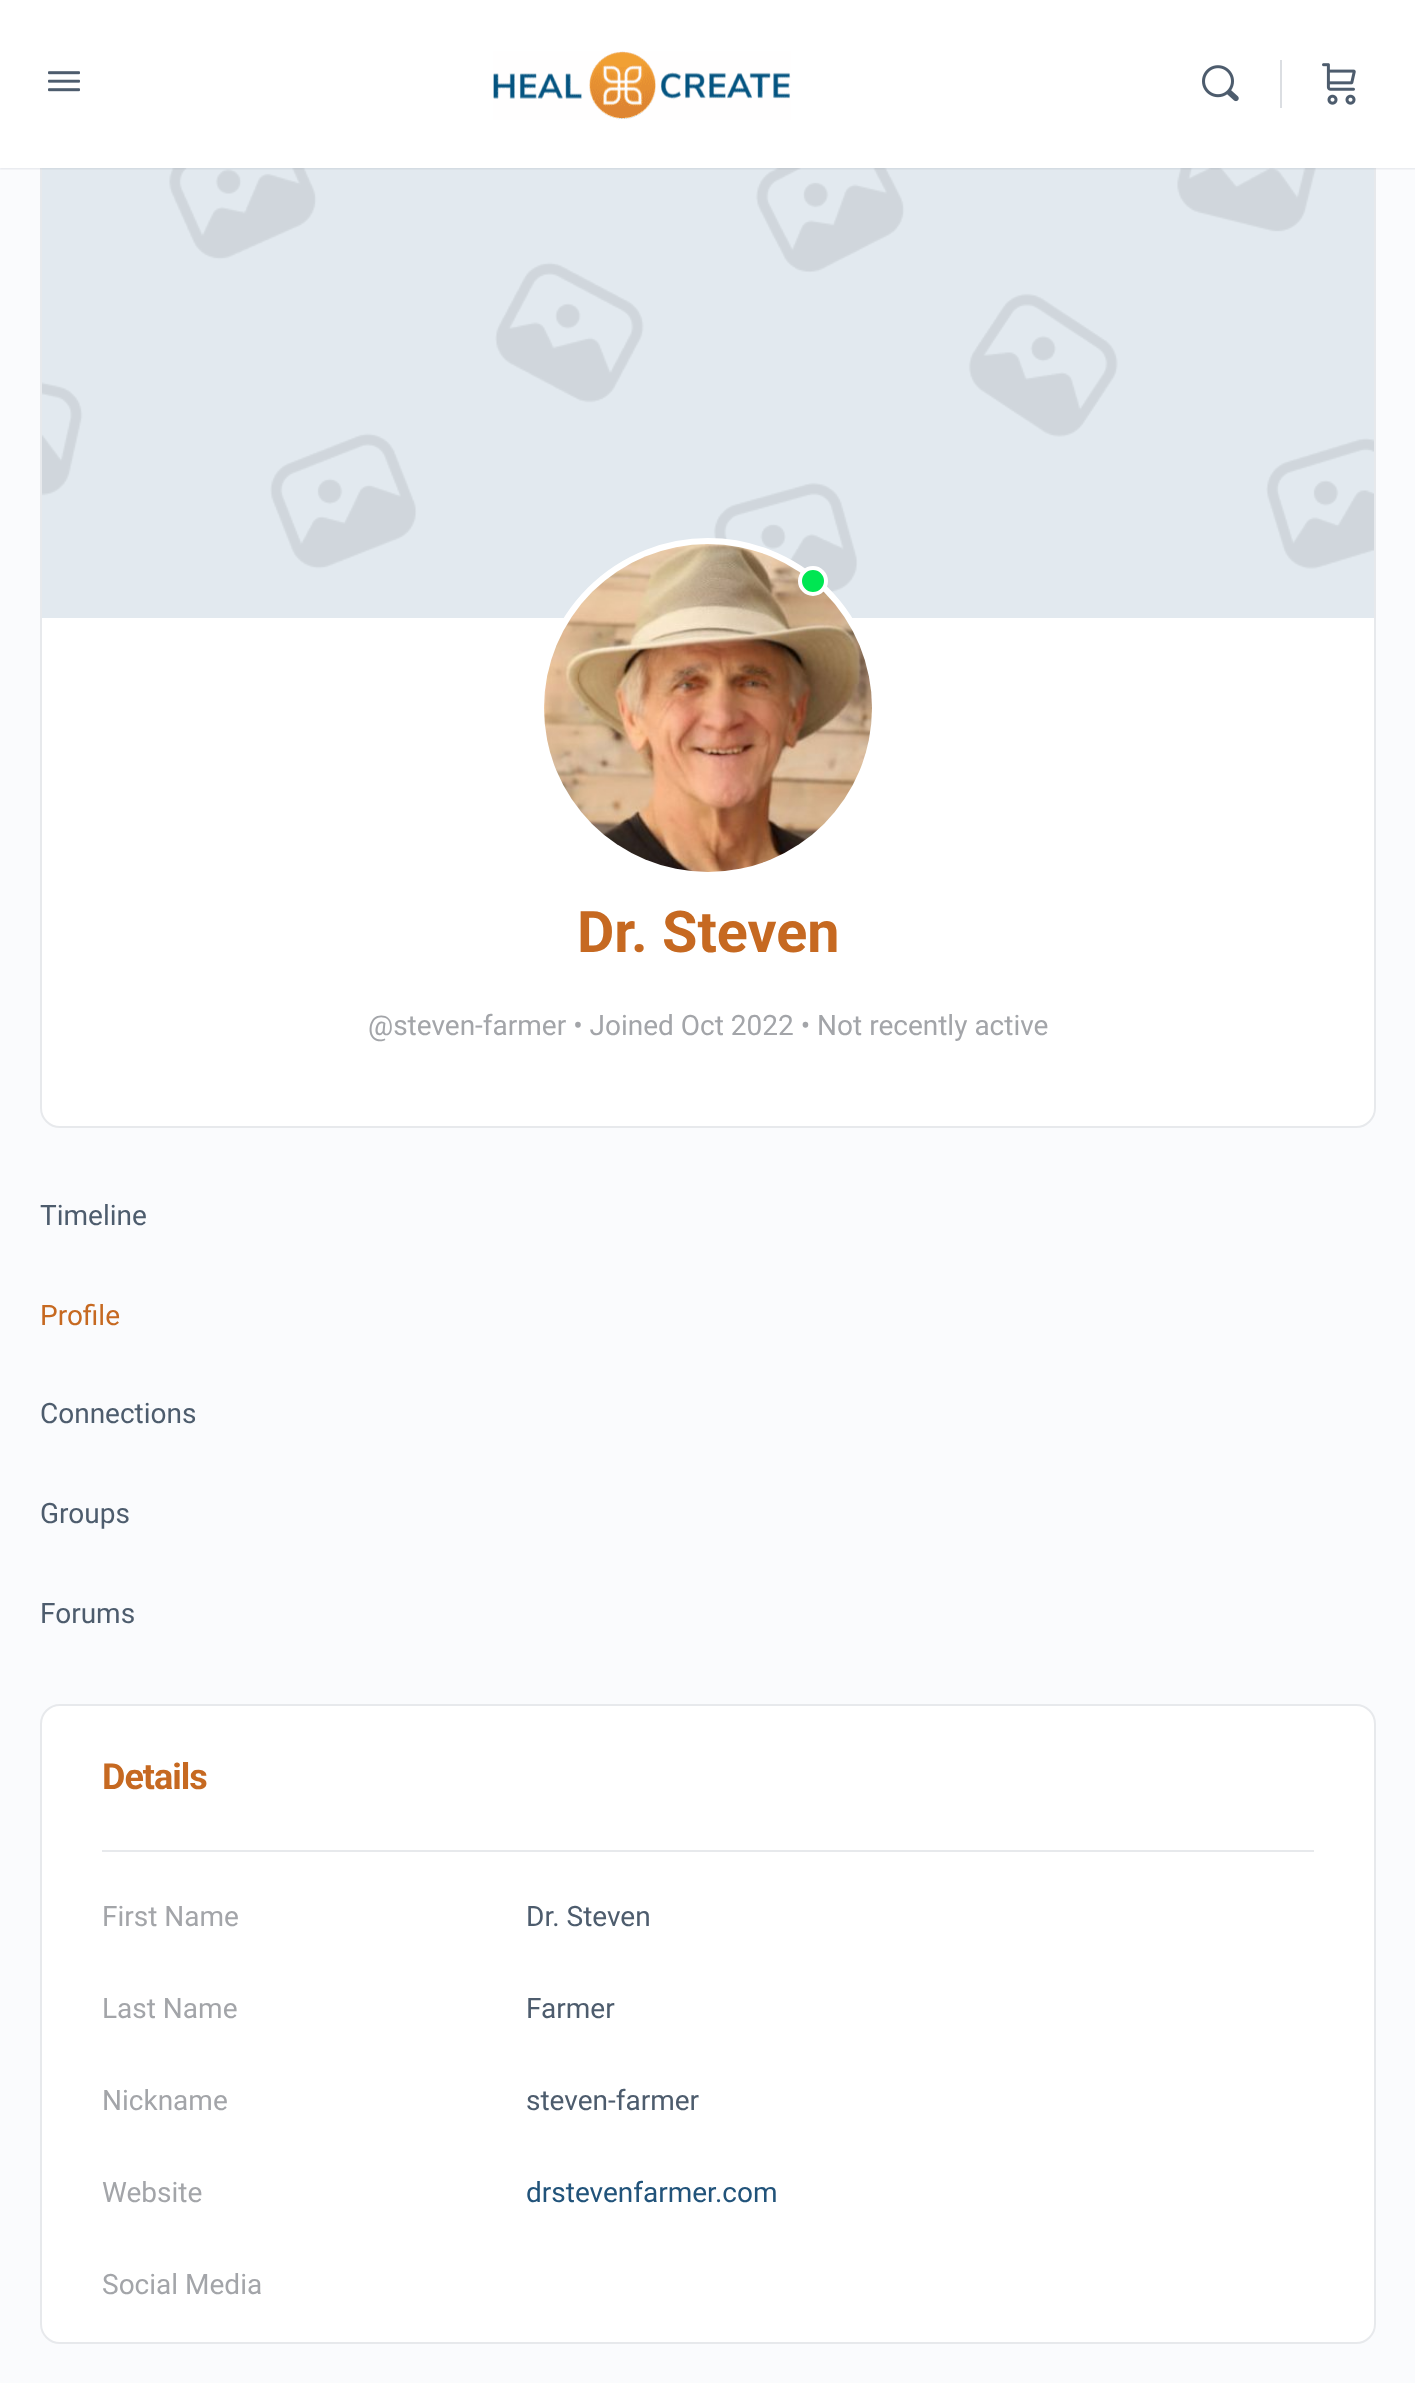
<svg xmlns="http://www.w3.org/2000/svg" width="1415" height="2383">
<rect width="100%" height="100%" fill="#fafbfd"/>
<path d="M41 167h1334v941c0 10.5-8.5 19-19 19h-1296c-10.5 0-19-8.5-19-19z" fill="#fff" stroke="#e7e9ec" stroke-width="2"/>
<rect x="42" y="168" width="1332" height="450" fill="#e2e9ef"/>
<image x="42" y="168" width="1332" height="424" href="media/5.png"/>
<rect width="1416" height="168" fill="#41476c26" filter="blur(1px)"/>
<rect y="168" width="1415" height="2" fill="#8b8d9d0d"/>
<rect width="1415" height="168" fill="#fff"/>
<image x="48" y="71" width="32" height="21" href="media/1.png"/>
<image x="493" y="51" width="298" height="69" href="media/2.png"/>
<image x="1202" y="65" width="37" height="37" href="media/3.png"/>
<rect x="1280" y="60" width="2" height="48" fill="#dbdee2"/>
<image x="1322" y="63" width="34" height="42" href="media/4.png"/>
<circle cx="708" cy="708" r="167" fill="#fff" stroke="#fff" stroke-width="6"/>
<image x="544" y="544" width="328" height="328" href="media/6.png"/>
<circle cx="813" cy="581" r="13" fill="#00e652" stroke="#fff" stroke-width="4"/>
<text x="577" y="952" style="font-family:Roboto;font-size:57.5px;font-weight:bold;fill:#c66921">Dr. Steven</text>
<text x="368" y="1035" style="font-family:Roboto;font-size:28px;fill:#a3a5a9">@steven-farmer • Joined Oct 2022 • Not recently active</text>
<text x="40" y="1225" style="font-family:Roboto;font-size:28px;fill:#4d5c6d">Timeline</text>
<text x="40" y="1325" style="font-family:Roboto;font-size:28px;fill:#c66921">Profile</text>
<text x="40" y="1423" style="font-family:Roboto;font-size:28px;fill:#4d5c6d">Connections</text>
<text x="40" y="1523" style="font-family:Roboto;font-size:28px;fill:#4d5c6d">Groups</text>
<text x="40" y="1623" style="font-family:Roboto;font-size:28px;fill:#4d5c6d">Forums</text>
<rect x="41" y="1705" width="1334" height="638" rx="19" fill="#fff" stroke="#e7e9ec" stroke-width="2"/>
<rect x="102" y="1850" width="1212" height="2" fill="#e7e9ec"/>
<text x="102" y="1789" style="font-family:Roboto;font-size:36px;font-weight:bold;letter-spacing:-1px;fill:#c66921">Details</text>
<text x="102" y="1926" style="font-family:Roboto;font-size:28px;fill:#a3a5a9">First Name</text>
<text x="526" y="1926" style="font-family:Roboto;font-size:28px;fill:#4d5c6d">Dr. Steven</text>
<text x="102" y="2018" style="font-family:Roboto;font-size:28px;fill:#a3a5a9">Last Name</text>
<text x="526" y="2018" style="font-family:Roboto;font-size:28px;fill:#4d5c6d">Farmer</text>
<text x="102" y="2110" style="font-family:Roboto;font-size:28px;fill:#a3a5a9">Nickname</text>
<text x="526" y="2110" style="font-family:Roboto;font-size:28px;fill:#4d5c6d">steven-farmer</text>
<text x="102" y="2202" style="font-family:Roboto;font-size:28px;fill:#a3a5a9">Website</text>
<text x="526" y="2202" style="font-family:Roboto;font-size:28px;fill:#21537a">drstevenfarmer.com</text>
<text x="102" y="2294" style="font-family:Roboto;font-size:28px;fill:#a3a5a9">Social Media</text>
</svg>
